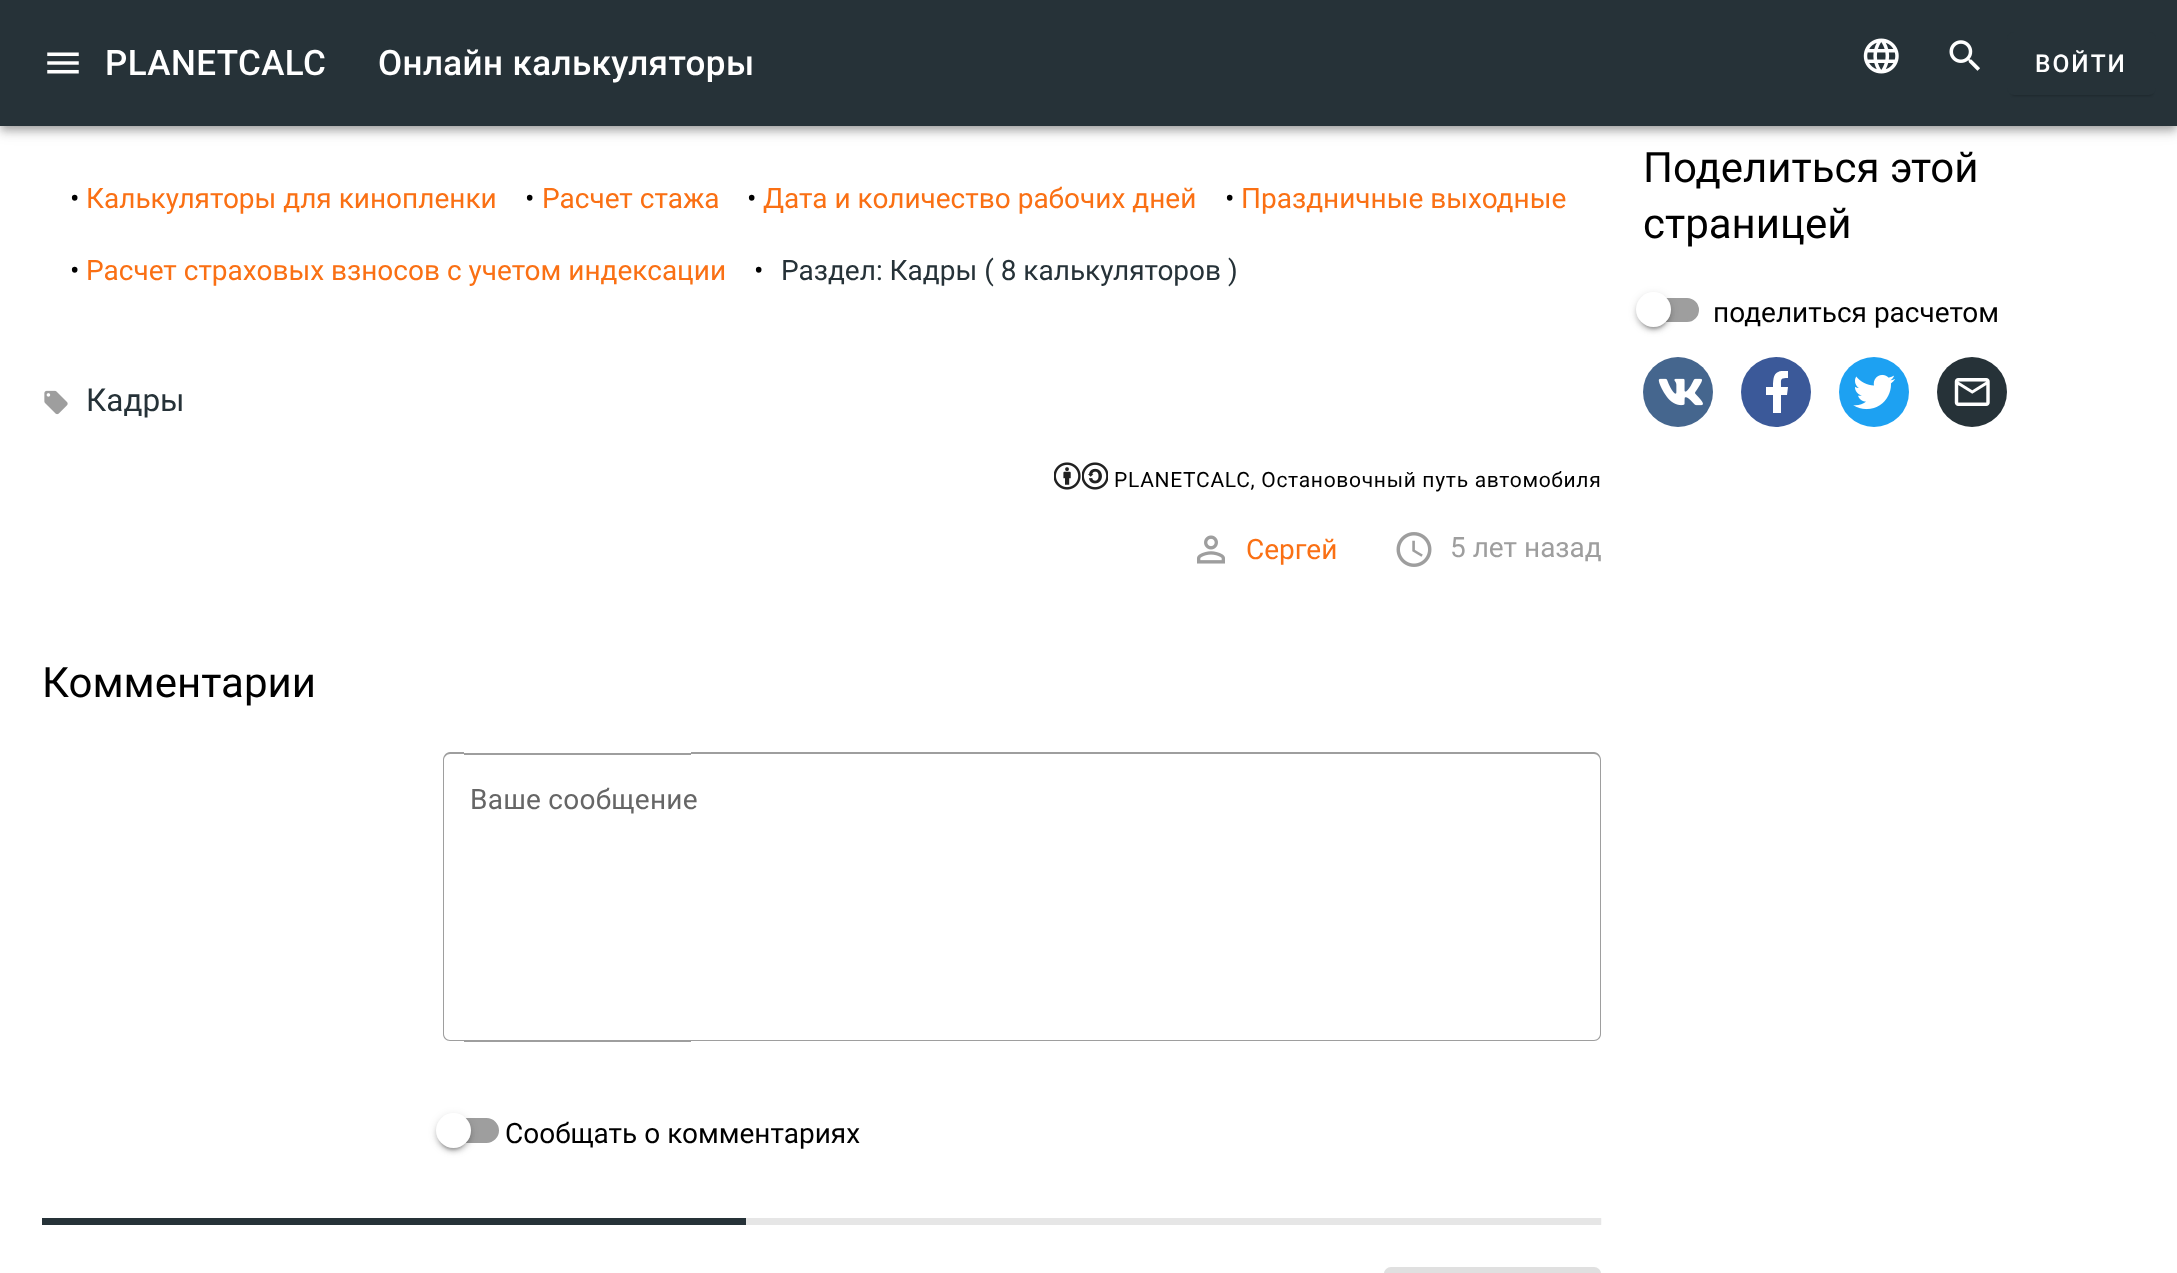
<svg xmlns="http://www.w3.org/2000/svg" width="2177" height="1273">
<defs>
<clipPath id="clip1"><rect x="1764" y="371" width="26" height="42"/></clipPath>
</defs>
<rect width="100%" height="100%" fill="#fff"/>
<rect y="2" width="2177" height="126" fill="#0000001f" filter="blur(9px)"/>
<rect y="7" width="2177" height="126" fill="#00000024" filter="blur(4.5px)"/>
<rect x="2" y="5" width="2173" height="123" fill="#00000033" filter="blur(3.5px)"/>
<rect width="2177" height="126" fill="#263238"/>
<image x="47" y="52" width="32" height="22" href="media/1.png"/>
<text x="105" y="75" style="font-family:Roboto;font-size:35px;font-weight:500;letter-spacing:0.4px;fill:#fff">PLANETCALC</text>
<text x="378" y="75" style="font-family:Roboto;font-size:35px;font-weight:500;letter-spacing:0.4px;fill:#fff">Онлайн калькуляторы</text>
<image x="1863" y="38" width="36" height="36" href="media/2.png"/>
<image x="1949" y="40" width="31" height="31" href="media/3.png"/>
<rect x="2011" y="40" width="142" height="56" rx="4" fill="#00000033" filter="blur(1px)"/>
<rect x="2007" y="32" width="149" height="63" rx="7" fill="#263238"/>
<text x="2035" y="72" style="font-family:Roboto;font-size:24.5px;font-weight:500;letter-spacing:2px;fill:#fff">ВОЙТИ</text>
<text x="70" y="208" style="font-family:Roboto;font-size:28px;fill:#000">•</text>
<text x="86" y="208" style="font-family:Roboto;font-size:28px;fill:#fa7014">Калькуляторы для кинопленки</text>
<text x="525" y="208" style="font-family:Roboto;font-size:28px;fill:#000">•</text>
<text x="542" y="208" style="font-family:Roboto;font-size:28px;fill:#fa7014">Расчет стажа</text>
<text x="747" y="208" style="font-family:Roboto;font-size:28px;fill:#000">•</text>
<text x="763" y="208" style="font-family:Roboto;font-size:28px;fill:#fa7014">Дата и количество рабочих дней</text>
<text x="1225" y="208" style="font-family:Roboto;font-size:28px;fill:#000">•</text>
<text x="1241" y="208" style="font-family:Roboto;font-size:28px;fill:#fa7014">Праздничные выходные</text>
<text x="70" y="280" style="font-family:Roboto;font-size:28px;fill:#000">•</text>
<text x="86" y="280" style="font-family:Roboto;font-size:28px;fill:#fa7014">Расчет страховых взносов с учетом индексации</text>
<text x="754" y="280" style="font-family:Roboto;font-size:28px;fill:#000">•</text>
<text x="781" y="280" style="font-family:Roboto;font-size:28px;fill:#263238">Раздел: Кадры ( 8 калькуляторов )</text>
<image x="44" y="390" width="24" height="25" href="media/4.png"/>
<text x="86" y="411" style="font-family:Roboto;font-size:31.5px;fill:#263238">Кадры</text>
<image x="1054" y="462" width="27" height="28" href="media/5.png"/>
<image x="1082" y="462" width="26" height="28" href="media/6.png"/>
<text x="1114" y="487" style="font-family:Roboto;font-size:21px;letter-spacing:0.7px;fill:#000">PLANETCALC, Остановочный путь автомобиля</text>
<image x="1197" y="535" width="28" height="29" href="media/7.png"/>
<text x="1246" y="559" style="font-family:Roboto;font-size:28px;fill:#fa7014">Сергей</text>
<image x="1396" y="532" width="36" height="35" href="media/8.png"/>
<text x="1450" y="557" style="font-family:Roboto;font-size:28px;fill:#9e9e9e">5 лет назад</text>
<text x="42" y="697" style="font-family:Roboto;font-size:42px;fill:#000">Комментарии</text>
<path d="M450 752h14v289h-14c-4 0-7-3-7-7v-274c0-4 3-8 7-8zm0 2h14v286h-14c-3 0-6-3-6-6v-274c0-3 3-6 6-6z" fill="#9e9e9e" fill-rule="evenodd"/>
<rect x="464" y="753" width="227" height="2" fill="#9e9e9e"/>
<rect x="464" y="1040" width="227" height="2" fill="#9e9e9e"/>
<path d="M691 752h903c4 0 7 4 7 8v274c0 4-3 7-7 7h-903zm0 2h903c3 0 6 3 6 6v274c0 3-3 6-6 6h-903z" fill="#9e9e9e" fill-rule="evenodd"/>
<text x="470" y="809" style="font-family:Roboto;font-size:28px;letter-spacing:0.25px;fill:#666">Ваше сообщение</text>
<rect x="444" y="1119" width="54" height="23" rx="11.5" fill="#9e9e9e" stroke="#9e9e9e" stroke-width="2"/>
<rect x="436" y="1115" width="35" height="35" rx="17.5" fill="#0000001f" filter="blur(4.5px)"/>
<rect x="436" y="1117" width="35" height="35" rx="17.5" fill="#00000024" filter="blur(2px)"/>
<rect x="439" y="1122" width="28" height="28" rx="14" fill="#00000033" filter="blur(1px)"/>
<circle cx="453.5" cy="1130.5" r="17.5" fill="#fff"/>
<text x="505" y="1143" style="font-family:Roboto;font-size:28px;fill:#000">Сообщать о комментариях</text>
<rect x="42" y="1218" width="704" height="7" fill="#263238"/>
<rect x="746" y="1218" width="855" height="7" fill="#e6e6e6"/>
<image x="1601" y="1218" width="1" height="7" href="media/9.png"/>
<rect x="1384" y="1267" width="217" height="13" rx="7" fill="#e0e0e0"/>
<text x="1643" y="182" style="font-family:Roboto;font-size:42px;fill:#000">Поделиться этой</text>
<text x="1643" y="238" style="font-family:Roboto;font-size:42px;fill:#000">страницей</text>
<rect x="1644" y="299" width="54" height="22" rx="11" fill="#9e9e9e" stroke="#9e9e9e" stroke-width="2"/>
<rect x="1636" y="294" width="35" height="35" rx="17.5" fill="#0000001f" filter="blur(4.5px)"/>
<rect x="1636" y="296" width="35" height="35" rx="17.5" fill="#00000024" filter="blur(2px)"/>
<rect x="1640" y="301" width="28" height="28" rx="14" fill="#00000033" filter="blur(1px)"/>
<circle cx="1653.5" cy="309.5" r="17.5" fill="#fff"/>
<text x="1713" y="322" style="font-family:Roboto;font-size:28px;fill:#000">поделиться расчетом</text>
<circle cx="1678" cy="392" r="35" fill="#45668e"/>
<image x="1658" y="378" width="45" height="28" href="media/10.png"/>
<circle cx="1776" cy="392" r="35" fill="#3b5999"/>
<g clip-path="url(#clip1)">
<path d="M1787 395l1-8h-7c0-8-1-9 7-9v-7c-13-1-15 3-15 16h-7v8h7v18h8v-18z" fill="#fff"/>
</g>
<circle cx="1874" cy="392" r="35" fill="#1da1f2"/>
<image x="1853" y="374" width="42" height="36" href="media/11.png"/>
<circle cx="1972" cy="392" r="35" fill="#263238"/>
<image x="1954" y="378" width="36" height="28" href="media/12.png"/>
</svg>
